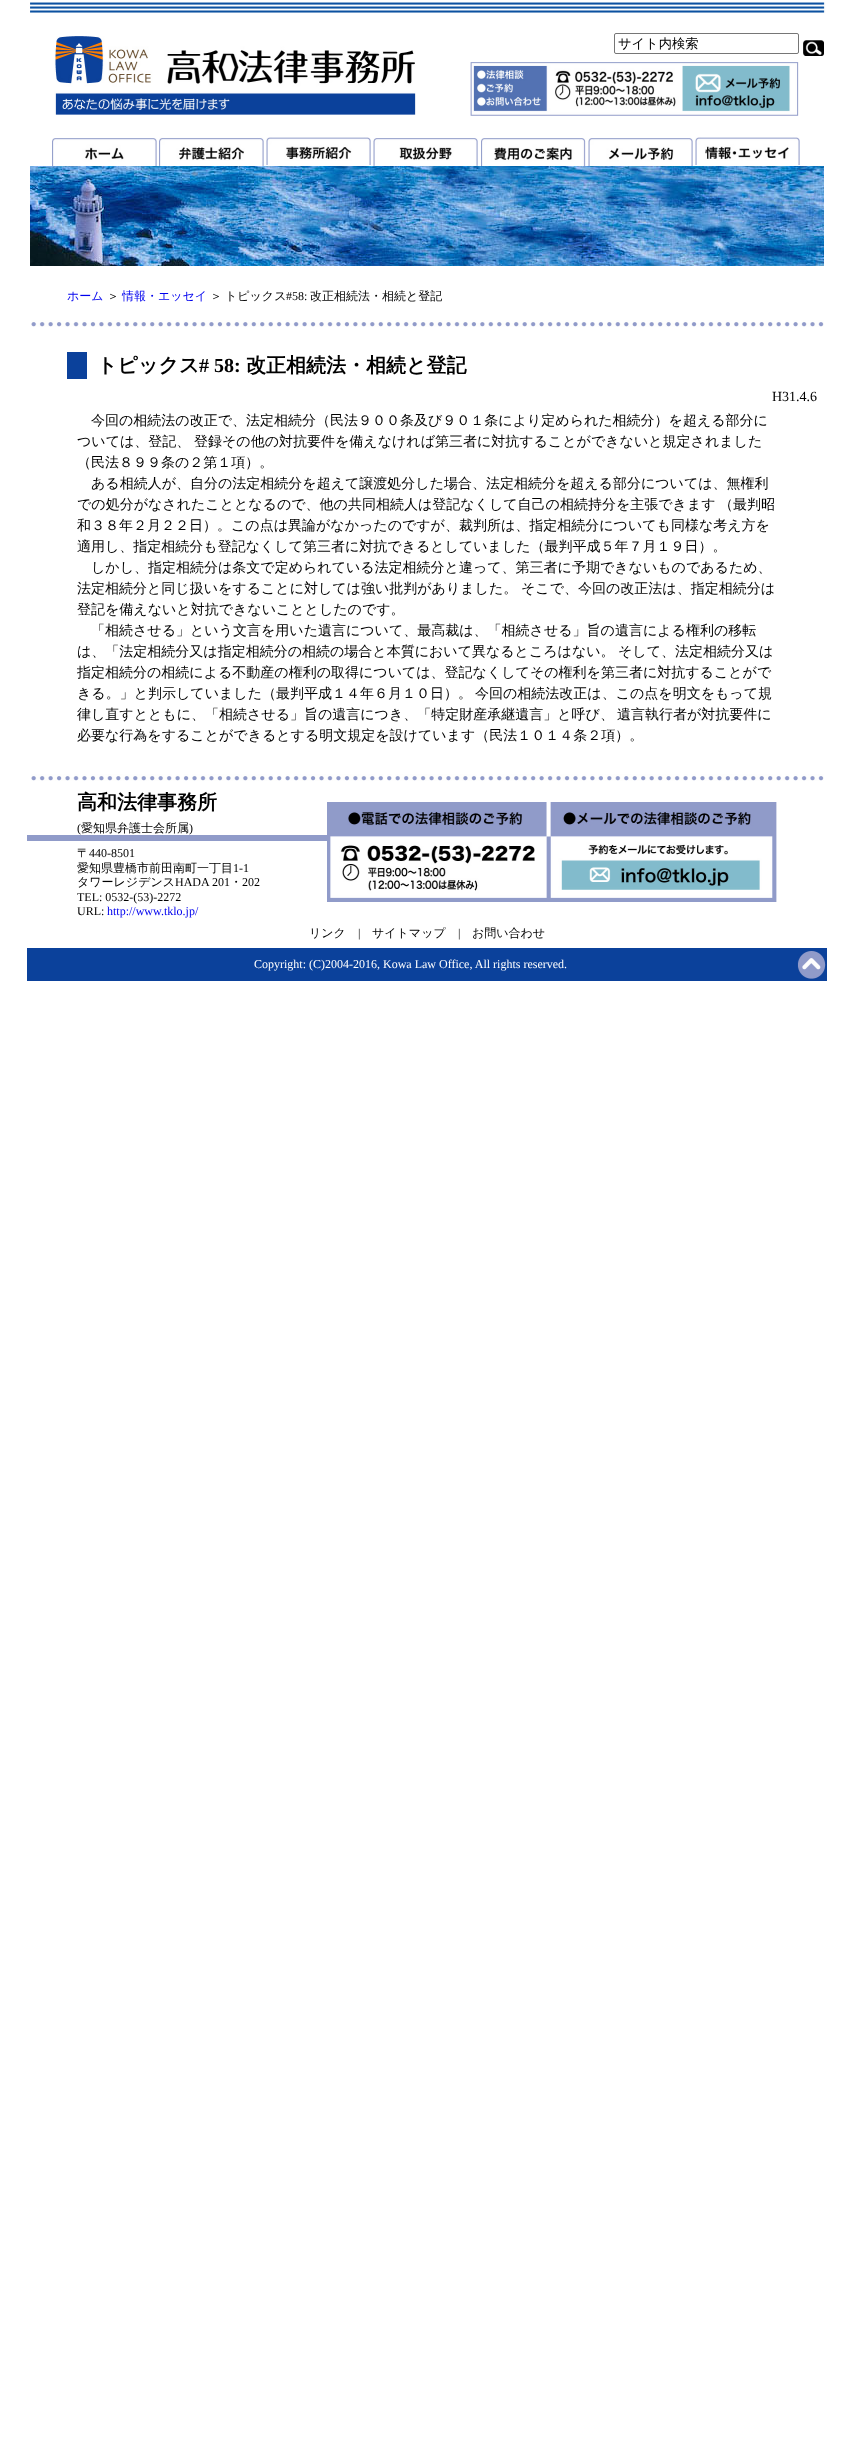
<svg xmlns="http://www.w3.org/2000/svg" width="854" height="2456">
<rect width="100%" height="100%" fill="#fff"/>
<image x="30" y="2" width="796" height="11" href="media/1.png"/>
<image x="54" y="36" width="362" height="79" href="media/2.png"/>
<rect x="614.5" y="33.5" width="184" height="20" rx="1.5" fill="none" stroke="#767676"/>
<text x="618" y="48" style="font-family:WenQuanYi Zen Hei;font-size:13.25px;font-weight:500;fill:#000">サイト内検索</text>
<image x="803" y="40" width="21" height="16" href="media/3.png"/>
<image x="470" y="62" width="329" height="54" href="media/4.png"/>
<image x="52" y="138" width="105" height="28" href="media/5.png"/>
<image x="159" y="137" width="105" height="29" href="media/6.png"/>
<image x="266" y="137" width="105" height="28" href="media/7.png"/>
<image x="373" y="138" width="105" height="28" href="media/8.png"/>
<image x="481" y="138" width="105" height="28" href="media/9.png"/>
<image x="588" y="138" width="105" height="28" href="media/10.png"/>
<image x="695" y="137" width="105" height="28" href="media/11.png"/>
<image x="30" y="166" width="794" height="100" href="media/12.png"/>
<text x="67" y="300" style="font-family:WenQuanYi Zen Hei;font-size:12px;font-weight:500;fill:#00e">ホーム</text>
<text x="107" y="300" style="font-family:WenQuanYi Zen Hei;font-size:12px;font-weight:500;fill:#000">＞</text>
<text x="122" y="300" style="font-family:WenQuanYi Zen Hei;font-size:12px;font-weight:500;fill:#00e">情報・エッセイ</text>
<text x="210" y="300" style="font-family:WenQuanYi Zen Hei;font-size:12px;font-weight:500;fill:#000">＞</text>
<text x="225" y="300" style="font-family:WenQuanYi Zen Hei;font-size:12px;font-weight:500;fill:#000">トピックス</text>
<text x="286" y="300" style="font-family:Liberation Serif;font-size:12px;fill:#000">#58:</text>
<text x="310" y="300" style="font-family:WenQuanYi Zen Hei;font-size:12px;font-weight:500;fill:#000">改正相続法・相続と登記</text>
<image x="31" y="320" width="793" height="7" href="media/13.png"/>
<rect x="67" y="352" width="20" height="27" fill="#0b419b"/>
<text x="97" y="372" style="font-family:WenQuanYi Zen Hei;font-size:20px;font-weight:bold;fill:#000">トピックス</text>
<text x="199" y="372" style="font-family:Liberation Serif;font-size:20px;font-weight:bold;fill:#000"># 58:</text>
<text x="246" y="372" style="font-family:WenQuanYi Zen Hei;font-size:20px;font-weight:bold;fill:#000">改正相続法・相続と登記</text>
<text x="772" y="401" style="font-family:Liberation Serif;font-size:14px;fill:#000">H31.4.6</text>
<text x="91" y="425" style="font-family:WenQuanYi Zen Hei;font-size:14px;font-weight:500;fill:#000">今回の相続法の改正で、法定相続分（民法９００条及び９０１条により定められた相続分）を超える部分に</text>
<text x="77" y="446" style="font-family:WenQuanYi Zen Hei;font-size:14px;font-weight:500;fill:#000">ついては、登記、</text>
<text x="194" y="446" style="font-family:WenQuanYi Zen Hei;font-size:14px;font-weight:500;fill:#000">登録その他の対抗要件を備えなければ第三者に対抗することができないと規定されました</text>
<text x="77" y="467" style="font-family:WenQuanYi Zen Hei;font-size:14px;font-weight:500;fill:#000">（民法８９９条の２第１項）。</text>
<text x="91" y="488" style="font-family:WenQuanYi Zen Hei;font-size:14px;font-weight:500;fill:#000">ある相続人が、自分の法定相続分を超えて譲渡処分した場合、法定相続分を超える部分については、無権利</text>
<text x="77" y="509" style="font-family:WenQuanYi Zen Hei;font-size:14px;font-weight:500;fill:#000">での処分がなされたこととなるので、他の共同相続人は登記なくして自己の相続持分を主張できます</text>
<text x="719" y="509" style="font-family:WenQuanYi Zen Hei;font-size:14px;font-weight:500;fill:#000">（最判昭</text>
<text x="77" y="530" style="font-family:WenQuanYi Zen Hei;font-size:14px;font-weight:500;fill:#000">和３８年２月２２日）。この点は異論がなかったのですが、裁判所は、指定相続分についても同様な考え方を</text>
<text x="77" y="551" style="font-family:WenQuanYi Zen Hei;font-size:14px;font-weight:500;fill:#000">適用し、指定相続分も登記なくして第三者に対抗できるとしていました（最判平成５年７月１９日）。</text>
<text x="91" y="572" style="font-family:WenQuanYi Zen Hei;font-size:14px;font-weight:500;fill:#000">しかし、指定相続分は条文で定められている法定相続分と違って、第三者に予期できないものであるため、</text>
<text x="77" y="593" style="font-family:WenQuanYi Zen Hei;font-size:14px;font-weight:500;fill:#000">法定相続分と同じ扱いをすることに対しては強い批判がありました。</text>
<text x="521" y="593" style="font-family:WenQuanYi Zen Hei;font-size:14px;font-weight:500;fill:#000">そこで、今回の改正法は、指定相続分は</text>
<text x="77" y="614" style="font-family:WenQuanYi Zen Hei;font-size:14px;font-weight:500;fill:#000">登記を備えないと対抗できないこととしたのです。</text>
<text x="91" y="635" style="font-family:WenQuanYi Zen Hei;font-size:14px;font-weight:500;fill:#000">「相続させる」という文言を用いた遺言について、最高裁は、「相続させる」旨の遺言による権利の移転</text>
<text x="77" y="656" style="font-family:WenQuanYi Zen Hei;font-size:14px;font-weight:500;fill:#000">は、「法定相続分又は指定相続分の相続の場合と本質において異なるところはない。</text>
<text x="618" y="656" style="font-family:WenQuanYi Zen Hei;font-size:14px;font-weight:500;fill:#000">そして、法定相続分又は</text>
<text x="77" y="677" style="font-family:WenQuanYi Zen Hei;font-size:14px;font-weight:500;fill:#000">指定相続分の相続による不動産の権利の取得については、登記なくしてその権利を第三者に対抗することがで</text>
<text x="77" y="698" style="font-family:WenQuanYi Zen Hei;font-size:14px;font-weight:500;fill:#000">きる。」と判示していました（最判平成１４年６月１０日）。</text>
<text x="475" y="698" style="font-family:WenQuanYi Zen Hei;font-size:14px;font-weight:500;fill:#000">今回の相続法改正は、この点を明文をもって規</text>
<text x="77" y="719" style="font-family:WenQuanYi Zen Hei;font-size:14px;font-weight:500;fill:#000">律し直すとともに、「相続させる」旨の遺言につき、「特定財産承継遺言」と呼び、</text>
<text x="617" y="719" style="font-family:WenQuanYi Zen Hei;font-size:14px;font-weight:500;fill:#000">遺言執行者が対抗要件に</text>
<text x="77" y="740" style="font-family:WenQuanYi Zen Hei;font-size:14px;font-weight:500;fill:#000">必要な行為をすることができるとする明文規定を設けています（民法１０１４条２項）。</text>
<image x="31" y="774" width="793" height="7" href="media/13.png"/>
<text x="77" y="809" style="font-family:WenQuanYi Zen Hei;font-size:20px;font-weight:bold;fill:#000">高和法律事務所</text>
<text x="77" y="832" style="font-family:Liberation Serif;font-size:12px;fill:#000">(</text>
<text x="81" y="832" style="font-family:WenQuanYi Zen Hei;font-size:12px;font-weight:500;fill:#000">愛知県弁護士会所属</text>
<text x="189" y="832" style="font-family:Liberation Serif;font-size:12px;fill:#000">)</text>
<rect x="27" y="835" width="300" height="6" fill="#909bc9"/>
<text x="77" y="857" style="font-family:WenQuanYi Zen Hei;font-size:12px;font-weight:500;fill:#000">〒</text>
<text x="89" y="857" style="font-family:Liberation Serif;font-size:12px;fill:#000">440-8501</text>
<text x="77" y="872" style="font-family:WenQuanYi Zen Hei;font-size:12px;font-weight:500;fill:#000">愛知県豊橋市前田南町一丁目</text>
<text x="233" y="872" style="font-family:Liberation Serif;font-size:12px;fill:#000">1-1</text>
<text x="77" y="886" style="font-family:WenQuanYi Zen Hei;font-size:12px;font-weight:500;fill:#000">タワーレジデンス</text>
<text x="175" y="886" style="font-family:Liberation Serif;font-size:12px;fill:#000">HADA 201</text>
<text x="230" y="886" style="font-family:WenQuanYi Zen Hei;font-size:12px;font-weight:500;fill:#000">・</text>
<text x="242" y="886" style="font-family:Liberation Serif;font-size:12px;fill:#000">202</text>
<text x="77" y="901" style="font-family:Liberation Serif;font-size:12px;fill:#000">TEL: 0532-(53)-2272</text>
<text x="77" y="915" style="font-family:Liberation Serif;font-size:12px;fill:#000">URL:</text>
<text x="107" y="915" style="font-family:Liberation Serif;font-size:12px;fill:#00e">http://www.tklo.jp/</text>
<image x="327" y="802" width="450" height="100" href="media/14.png"/>
<text x="309" y="937" style="font-family:WenQuanYi Zen Hei;font-size:12px;font-weight:500;fill:#000">リンク</text>
<text x="358" y="937" style="font-family:Liberation Serif;font-size:12px;fill:#000">|</text>
<text x="372" y="937" style="font-family:WenQuanYi Zen Hei;font-size:12px;font-weight:500;fill:#000">サイトマップ</text>
<text x="458" y="937" style="font-family:Liberation Serif;font-size:12px;fill:#000">|</text>
<text x="472" y="937" style="font-family:WenQuanYi Zen Hei;font-size:12px;font-weight:500;fill:#000">お問い合わせ</text>
<rect x="27" y="948" width="800" height="33" fill="#0b419b"/>
<text x="254" y="968" style="font-family:Liberation Serif;font-size:12px;fill:#fff">Copyright: (C)2004-2016, Kowa Law Office, All rights reserved.</text>
<image x="797" y="951" width="29" height="28" href="media/15.png"/>
</svg>
